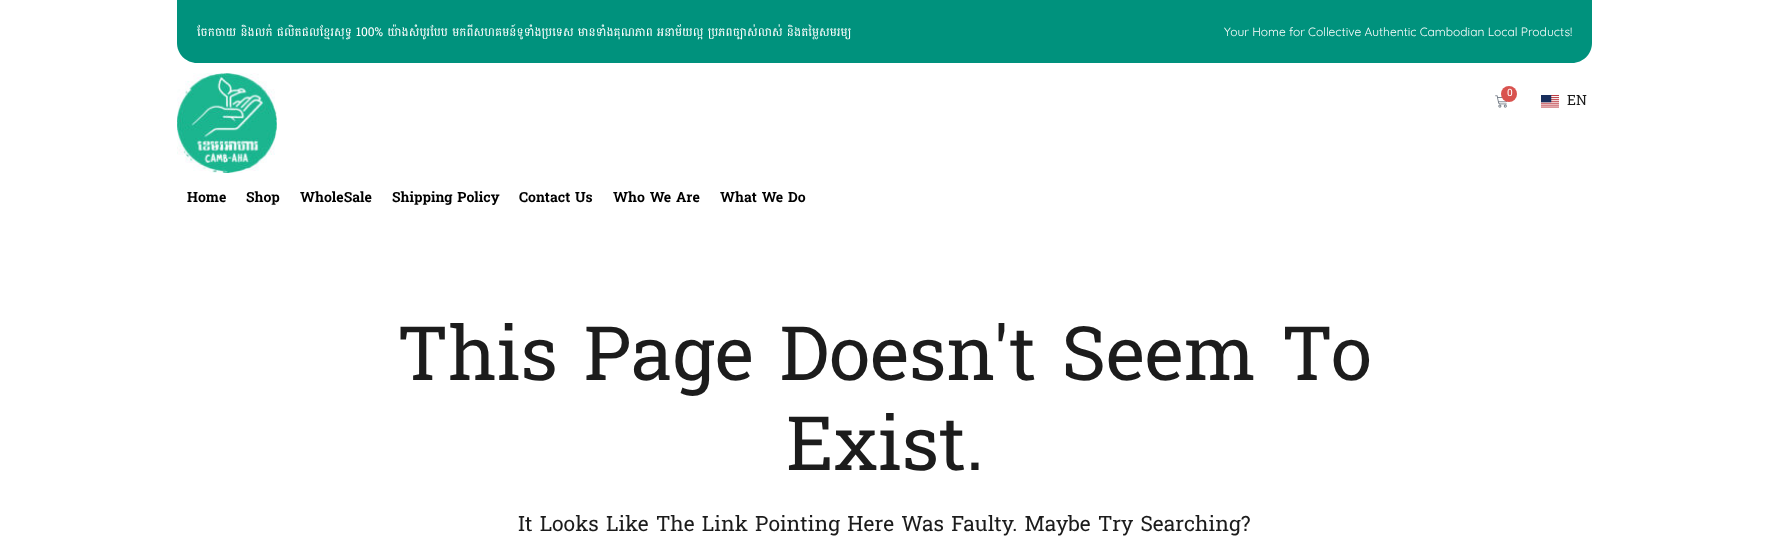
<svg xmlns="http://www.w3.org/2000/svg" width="1769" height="543">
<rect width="100%" height="100%" fill="#fff"/>
<path d="M177 0h1415v43c0 11-9 20-20 20h-1375c-11 0-20-9-20-20z" fill="#00927d"/>
<text x="197" y="36" style="font-family:Battambang;font-size:12px;fill:#fff">ចែកចាយ និងលក់ ផលិតផលខ្មែរសុទ្ធ 100% យ៉ាងសំបូរបែប មកពីសហគមន៍ទូទាំងប្រទេស មានទាំងគុណភាព អនាម័យល្អ ប្រភពច្បាស់លាស់ និងតម្លៃសមរម្យ</text>
<text x="1224" y="36" style="font-family:Quicksand;font-size:12px;fill:#fff">Your Home for Collective Authentic Cambodian Local Products!</text>
<image x="177" y="73" width="100" height="100" href="media/1.png"/>
<image x="1495" y="95" width="13" height="13" href="media/2.png"/>
<circle cx="1509" cy="94" r="8" fill="#d9534f"/>
<text x="1507" y="96" style="font-family:Battambang;font-size:10px;fill:#fff">0</text>
<image x="1541" y="95" width="18" height="13" href="media/3.png"/>
<text x="1567" y="105" style="font-family:Battambang;font-size:14px;fill:#1c1c1c">EN</text>
<text x="187" y="202" style="font-family:Battambang;font-size:14px;font-weight:bold;fill:#000">Home</text>
<text x="246" y="202" style="font-family:Battambang;font-size:14px;font-weight:bold;fill:#000">Shop</text>
<text x="300" y="202" style="font-family:Battambang;font-size:14px;font-weight:bold;fill:#000">WholeSale</text>
<text x="392" y="202" style="font-family:Battambang;font-size:14px;font-weight:bold;fill:#000">Shipping Policy</text>
<text x="519" y="202" style="font-family:Battambang;font-size:14px;font-weight:bold;fill:#000">Contact Us</text>
<text x="613" y="202" style="font-family:Battambang;font-size:14px;font-weight:bold;fill:#000">Who We Are</text>
<text x="720" y="202" style="font-family:Battambang;font-size:14px;font-weight:bold;fill:#000">What We Do</text>
<text x="397" y="380" style="font-family:Battambang;font-size:75px;fill:#1c1c1c">This Page Doesn't Seem To</text>
<text x="786" y="470" style="font-family:Battambang;font-size:75px;fill:#1c1c1c">Exist.</text>
<text x="518" y="531" style="font-family:Battambang;font-size:21px;fill:#1c1c1c">It Looks Like The Link Pointing Here Was Faulty. Maybe Try Searching?</text>
</svg>
